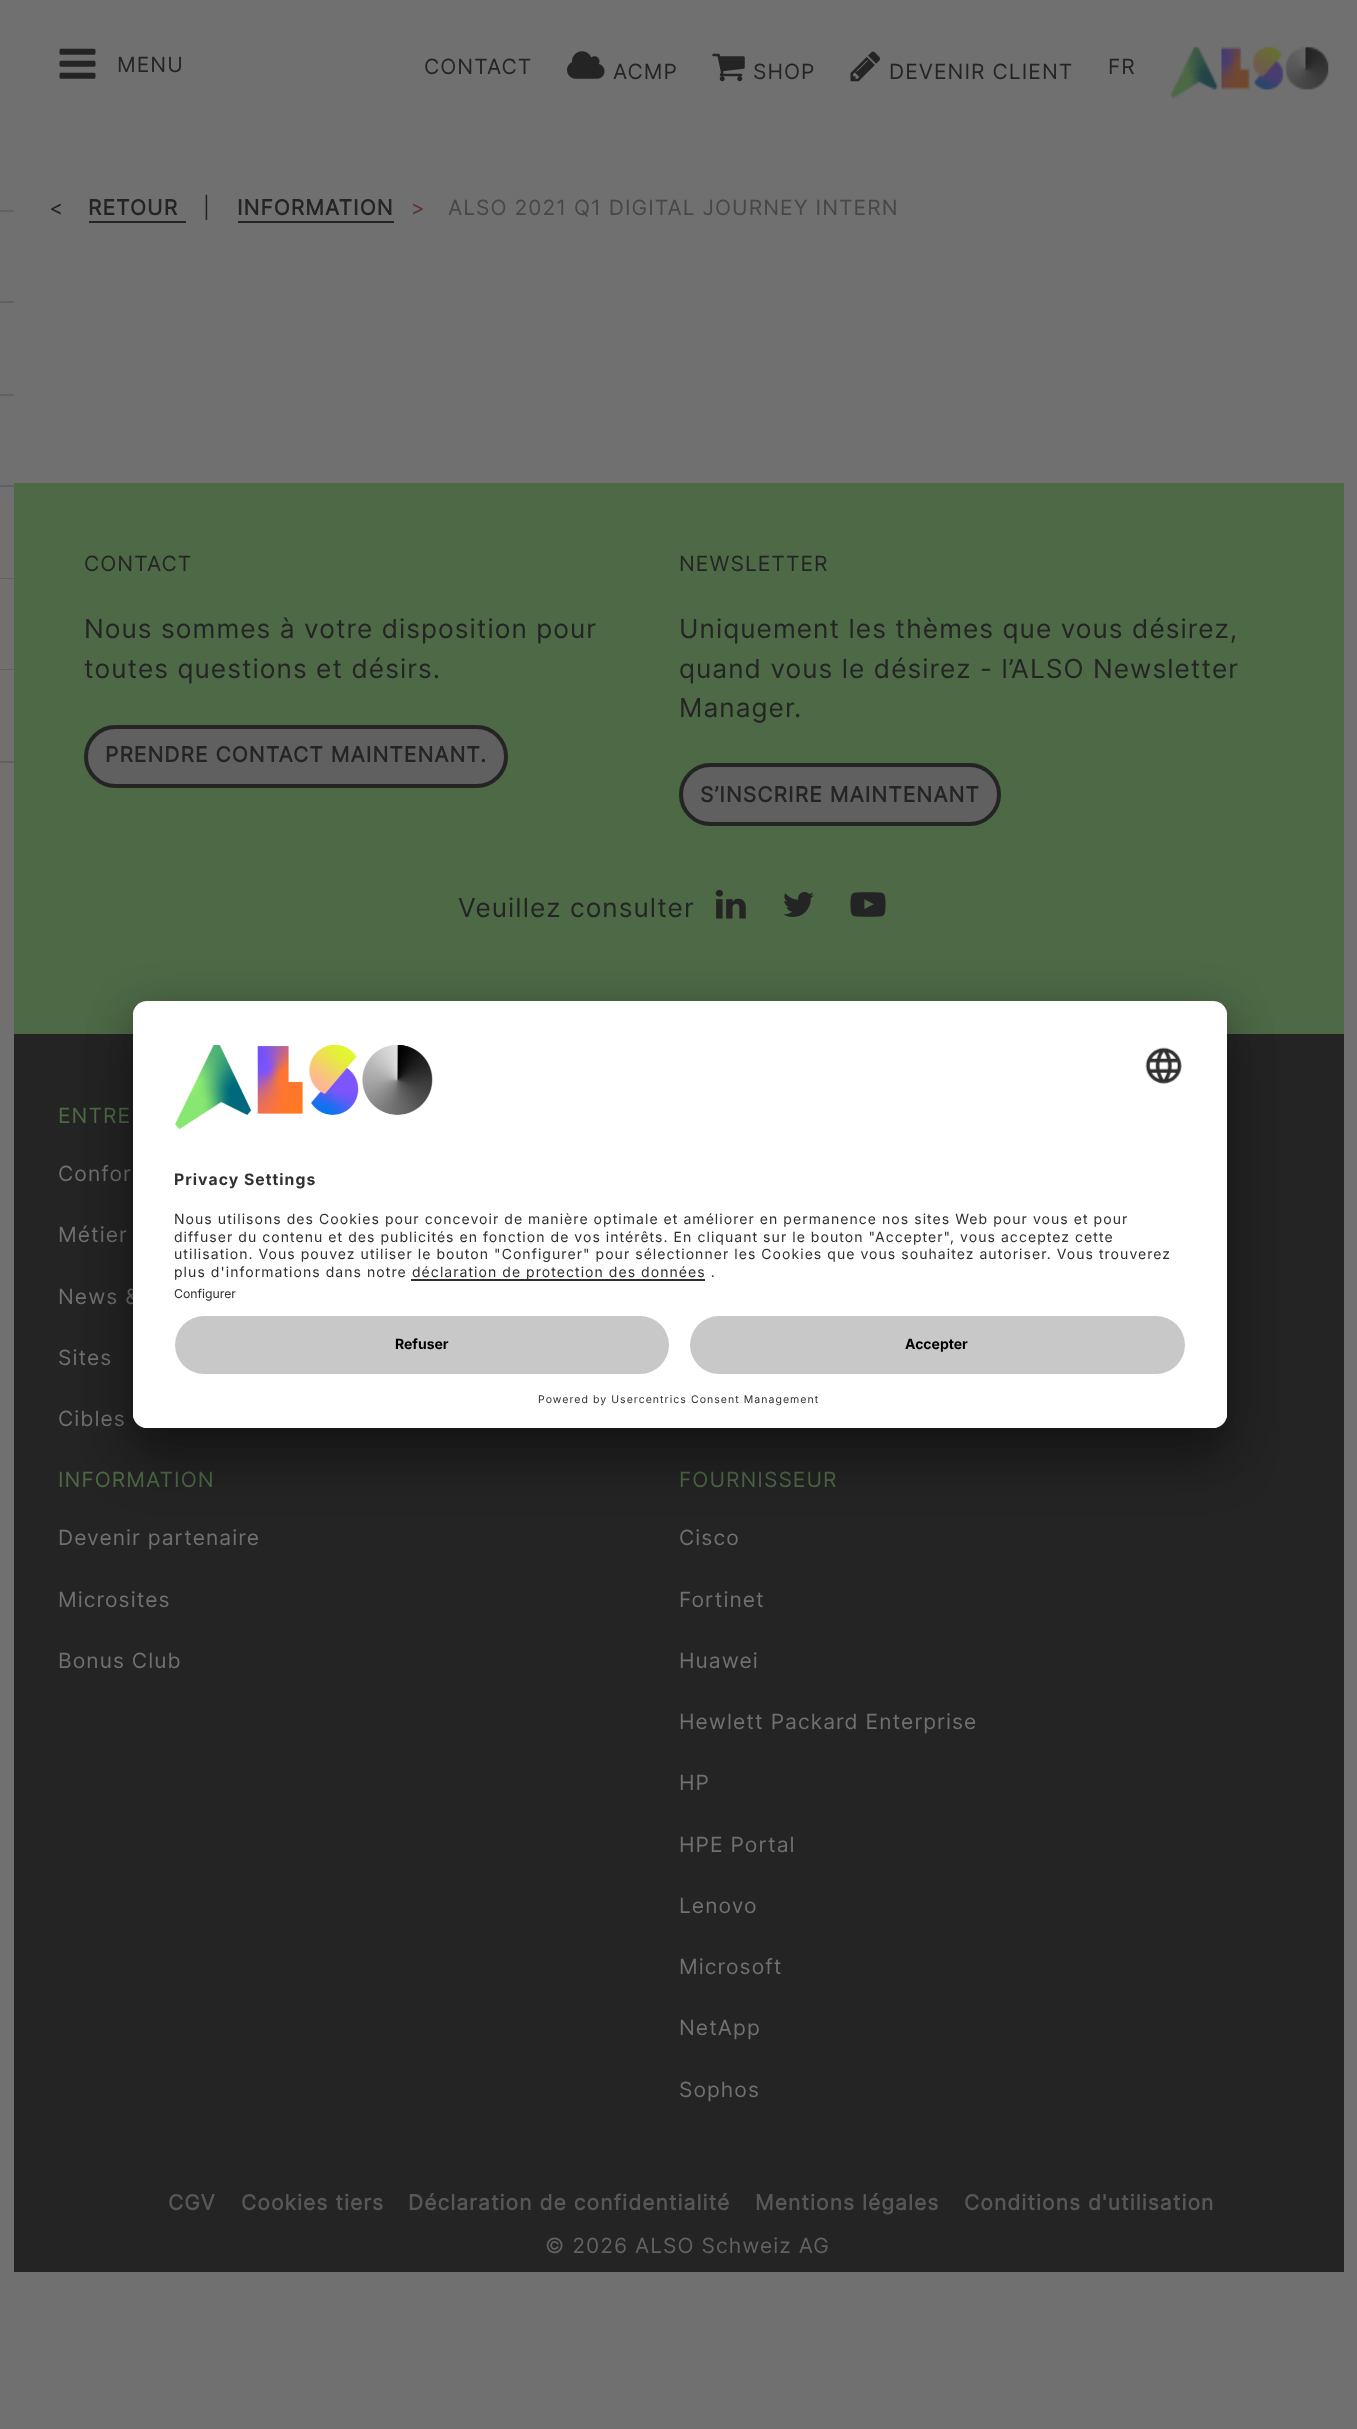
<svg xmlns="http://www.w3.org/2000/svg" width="1357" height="2429">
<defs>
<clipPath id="clip1"><rect x="133" y="1001" width="1094" height="427" rx="14"/></clipPath>
<clipPath id="clip2"><path d="M147 1001h1066c7.5 0 14 6.5 14 14v287h-1094v-287c0-7.5 6.5-14 14-14z"/></clipPath>
</defs>
<rect width="100%" height="100%" fill="#707070"/>
<image x="59" y="48" width="37" height="31" href="media/1.png"/>
<text x="117" y="72" style="font-family:Inter;font-size:21px;letter-spacing:1.05px;fill:#242424">MENU</text>
<text x="424" y="74" style="font-family:Inter;font-size:21px;letter-spacing:1.05px;fill:#242424">CONTACT</text>
<image x="567" y="51" width="38" height="28" href="media/2.png"/>
<text x="613" y="79" style="font-family:Inter;font-size:21px;letter-spacing:1.05px;fill:#242424">ACMP</text>
<image x="712" y="53" width="33" height="29" href="media/3.png"/>
<text x="753" y="79" style="font-family:Inter;font-size:21px;letter-spacing:1.05px;fill:#242424">SHOP</text>
<image x="850" y="51" width="31" height="31" href="media/4.png"/>
<text x="889" y="79" style="font-family:Inter;font-size:21px;letter-spacing:1.05px;fill:#242424">DEVENIR CLIENT</text>
<text x="1108" y="74" style="font-family:Inter;font-size:21px;letter-spacing:1.05px;fill:#242424">FR</text>
<image x="1170" y="46" width="159" height="53" href="media/5.png"/>
<text x="49" y="215" style="font-family:Inter;font-size:21px;letter-spacing:1.05px;fill:#242424">&lt;</text>
<text x="88" y="215" style="font-family:Inter;font-size:21px;font-weight:bold;letter-spacing:1.05px;fill:#242424">RETOUR</text>
<rect x="89" y="221" width="97" height="2" fill="#242424"/>
<text x="203" y="215" style="font-family:Inter;font-size:21px;letter-spacing:1.05px;fill:#242424">|</text>
<text x="237" y="215" style="font-family:Inter;font-size:21px;font-weight:bold;letter-spacing:1.05px;fill:#242424">INFORMATION</text>
<rect x="238" y="221" width="156" height="2" fill="#242424"/>
<text x="411" y="215" style="font-family:Inter;font-size:21px;letter-spacing:1.05px;fill:#5e3233">&gt;</text>
<text x="448" y="215" style="font-family:Inter;font-size:21px;letter-spacing:1.05px;fill:#474747">ALSO 2021 Q1 DIGITAL JOURNEY INTERN</text>
<rect y="210" width="14" height="2" fill="#616161"/>
<rect y="301" width="14" height="2" fill="#616161"/>
<rect y="394" width="14" height="2" fill="#616161"/>
<rect y="485" width="14" height="2" fill="#616161"/>
<rect y="578" width="14" height="1" fill="#616161"/>
<rect y="669" width="14" height="1" fill="#616161"/>
<rect y="761" width="14" height="2" fill="#616161"/>
<rect x="14" y="483" width="1330" height="551" fill="#4d6946"/>
<text x="84" y="571" style="font-family:Inter;font-size:21px;letter-spacing:1.05px;fill:#242424">CONTACT</text>
<text x="84" y="638" style="font-family:Inter;font-size:26.25px;letter-spacing:1.05px;fill:#242424">Nous sommes à votre disposition pour</text>
<text x="84" y="678" style="font-family:Inter;font-size:26.25px;letter-spacing:1.05px;fill:#242424">toutes questions et désirs.</text>
<rect x="86" y="727" width="420" height="59" rx="29.5" fill="#606060" stroke="#242424" stroke-width="4"/>
<text x="105" y="762" style="font-family:Inter;font-size:21px;font-weight:bold;letter-spacing:1.05px;fill:#242424">PRENDRE CONTACT MAINTENANT.</text>
<text x="679" y="571" style="font-family:Inter;font-size:21px;letter-spacing:1.05px;fill:#242424">NEWSLETTER</text>
<text x="679" y="638" style="font-family:Inter;font-size:26.25px;letter-spacing:1.05px;fill:#242424">Uniquement les thèmes que vous désirez,</text>
<text x="679" y="678" style="font-family:Inter;font-size:26.25px;letter-spacing:1.05px;fill:#242424">quand vous le désirez - l’ALSO Newsletter</text>
<text x="679" y="717" style="font-family:Inter;font-size:26.25px;letter-spacing:1.05px;fill:#242424">Manager.</text>
<rect x="681" y="765" width="318" height="59" rx="29.5" fill="#606060" stroke="#242424" stroke-width="4"/>
<text x="700" y="802" style="font-family:Inter;font-size:21px;font-weight:bold;letter-spacing:1.05px;fill:#242424">S’INSCRIRE MAINTENANT</text>
<text x="458" y="917" style="font-family:Inter;font-size:26.25px;letter-spacing:1.05px;fill:#242424">Veuillez consulter</text>
<image x="715" y="889" width="31" height="30" href="media/6.png"/>
<image x="783" y="892" width="31" height="25" href="media/7.png"/>
<image x="850" y="892" width="36" height="25" href="media/8.png"/>
<rect x="14" y="1034" width="1330" height="1238" fill="#242424"/>
<text x="58" y="1123" style="font-family:Inter;font-size:21px;letter-spacing:1.05px;fill:#4d6946">ENTRE</text>
<text x="58" y="1181" style="font-family:Inter;font-size:21px;letter-spacing:1.05px;fill:#707070">Confor</text>
<text x="58" y="1242" style="font-family:Inter;font-size:21px;letter-spacing:1.05px;fill:#707070">Métier</text>
<text x="58" y="1304" style="font-family:Inter;font-size:21px;letter-spacing:1.05px;fill:#707070">News &amp;</text>
<text x="58" y="1365" style="font-family:Inter;font-size:21px;letter-spacing:1.05px;fill:#707070">Sites</text>
<text x="58" y="1426" style="font-family:Inter;font-size:21px;letter-spacing:1.05px;fill:#707070">Cibles</text>
<text x="58" y="1487" style="font-family:Inter;font-size:21px;letter-spacing:1.05px;fill:#4d6946">INFORMATION</text>
<text x="58" y="1545" style="font-family:Inter;font-size:21px;letter-spacing:1.05px;fill:#707070">Devenir partenaire</text>
<text x="58" y="1607" style="font-family:Inter;font-size:21px;letter-spacing:1.05px;fill:#707070">Microsites</text>
<text x="58" y="1668" style="font-family:Inter;font-size:21px;letter-spacing:1.05px;fill:#707070">Bonus Club</text>
<text x="679" y="1487" style="font-family:Inter;font-size:21px;letter-spacing:1.05px;fill:#4d6946">FOURNISSEUR</text>
<text x="679" y="1545" style="font-family:Inter;font-size:21px;letter-spacing:1.05px;fill:#707070">Cisco</text>
<text x="679" y="1607" style="font-family:Inter;font-size:21px;letter-spacing:1.05px;fill:#707070">Fortinet</text>
<text x="679" y="1668" style="font-family:Inter;font-size:21px;letter-spacing:1.05px;fill:#707070">Huawei</text>
<text x="679" y="1729" style="font-family:Inter;font-size:21px;letter-spacing:1.05px;fill:#707070">Hewlett Packard Enterprise</text>
<text x="679" y="1790" style="font-family:Inter;font-size:21px;letter-spacing:1.05px;fill:#707070">HP</text>
<text x="679" y="1852" style="font-family:Inter;font-size:21px;letter-spacing:1.05px;fill:#707070">HPE Portal</text>
<text x="679" y="1913" style="font-family:Inter;font-size:21px;letter-spacing:1.05px;fill:#707070">Lenovo</text>
<text x="679" y="1974" style="font-family:Inter;font-size:21px;letter-spacing:1.05px;fill:#707070">Microsoft</text>
<text x="679" y="2035" style="font-family:Inter;font-size:21px;letter-spacing:1.05px;fill:#707070">NetApp</text>
<text x="679" y="2097" style="font-family:Inter;font-size:21px;letter-spacing:1.05px;fill:#707070">Sophos</text>
<text x="168" y="2210" style="font-family:Inter;font-size:21px;font-weight:bold;letter-spacing:1.05px;fill:#575757">CGV</text>
<text x="241" y="2210" style="font-family:Inter;font-size:21px;font-weight:bold;letter-spacing:1.05px;fill:#575757">Cookies tiers</text>
<text x="408" y="2210" style="font-family:Inter;font-size:21px;font-weight:bold;letter-spacing:1.05px;fill:#575757">Déclaration de confidentialité</text>
<text x="755" y="2210" style="font-family:Inter;font-size:21px;font-weight:bold;letter-spacing:1.05px;fill:#575757">Mentions légales</text>
<text x="964" y="2210" style="font-family:Inter;font-size:21px;font-weight:bold;letter-spacing:1.05px;fill:#575757">Conditions d'utilisation</text>
<text x="545" y="2253" style="font-family:Inter;font-size:21px;letter-spacing:1.05px;fill:#616161">© 2026 ALSO Schweiz AG</text>
<rect x="133" y="1036" width="1094" height="427" rx="14" fill="#0000004d" filter="blur(24.5px)"/>
<rect x="133" y="1010" width="1094" height="427" rx="14" fill="#00000038" filter="blur(23px)"/>
<rect x="133" y="1001" width="1094" height="427" rx="14" fill="#fff"/>
<g clip-path="url(#clip1)">
<g clip-path="url(#clip2)">
<rect x="133" y="1003" width="1094" height="299" fill="#fff"/>
</g>
</g>
<image x="175" y="1045" width="258" height="84" href="media/9.png"/>
<image x="1145" y="1047" width="37" height="37" href="media/10.png"/>
<text x="174" y="1185" style="font-family:'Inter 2';font-size:15.75px;font-weight:bold;letter-spacing:1.05px;fill:#303030">Privacy Settings</text>
<text x="174" y="1224" style="font-family:'Inter 2';font-size:14px;letter-spacing:1.05px;fill:#303030">Nous utilisons des Cookies pour concevoir de manière optimale et améliorer en permanence nos sites Web pour vous et pour</text>
<text x="174" y="1242" style="font-family:'Inter 2';font-size:14px;letter-spacing:1.05px;fill:#303030">diffuser du contenu et des publicités en fonction de vos intérêts. En cliquant sur le bouton "Accepter", vous acceptez cette</text>
<text x="174" y="1259" style="font-family:'Inter 2';font-size:14px;letter-spacing:1.05px;fill:#303030">utilisation. Vous pouvez utiliser le bouton "Configurer" pour sélectionner les Cookies que vous souhaitez autoriser. Vous trouverez</text>
<text x="174" y="1277" style="font-family:'Inter 2';font-size:14px;letter-spacing:1.05px;fill:#303030">plus d'informations dans notre</text>
<rect x="411" y="1279" width="294" height="2" fill="#303030"/>
<text x="412" y="1277" style="font-family:'Inter 2';font-size:14px;letter-spacing:1.05px;fill:#303030">déclaration de protection des données .</text>
<text x="174" y="1298" style="font-family:'Inter 2';font-size:12.25px;fill:#303030">Configurer</text>
<path d="M133 1302h1094v112c0 7.5-6.5 14-14 14h-1066c-7.5 0-14-6.5-14-14z" fill="#fff"/>
<rect x="175" y="1316" width="494" height="58" rx="29" fill="#c8c8c8"/>
<text x="395" y="1349" style="font-family:'Inter 2';font-size:14px;font-weight:bold;fill:#000">Refuser</text>
<rect x="690" y="1316" width="495" height="58" rx="29" fill="#c8c8c8"/>
<text x="905" y="1349" style="font-family:'Inter 2';font-size:14px;font-weight:bold;fill:#000">Accepter</text>
<text x="538" y="1403" style="font-family:'Inter 2';font-size:10.5px;letter-spacing:1.05px;fill:#303030">Powered by Usercentrics Consent Management</text>
</svg>
